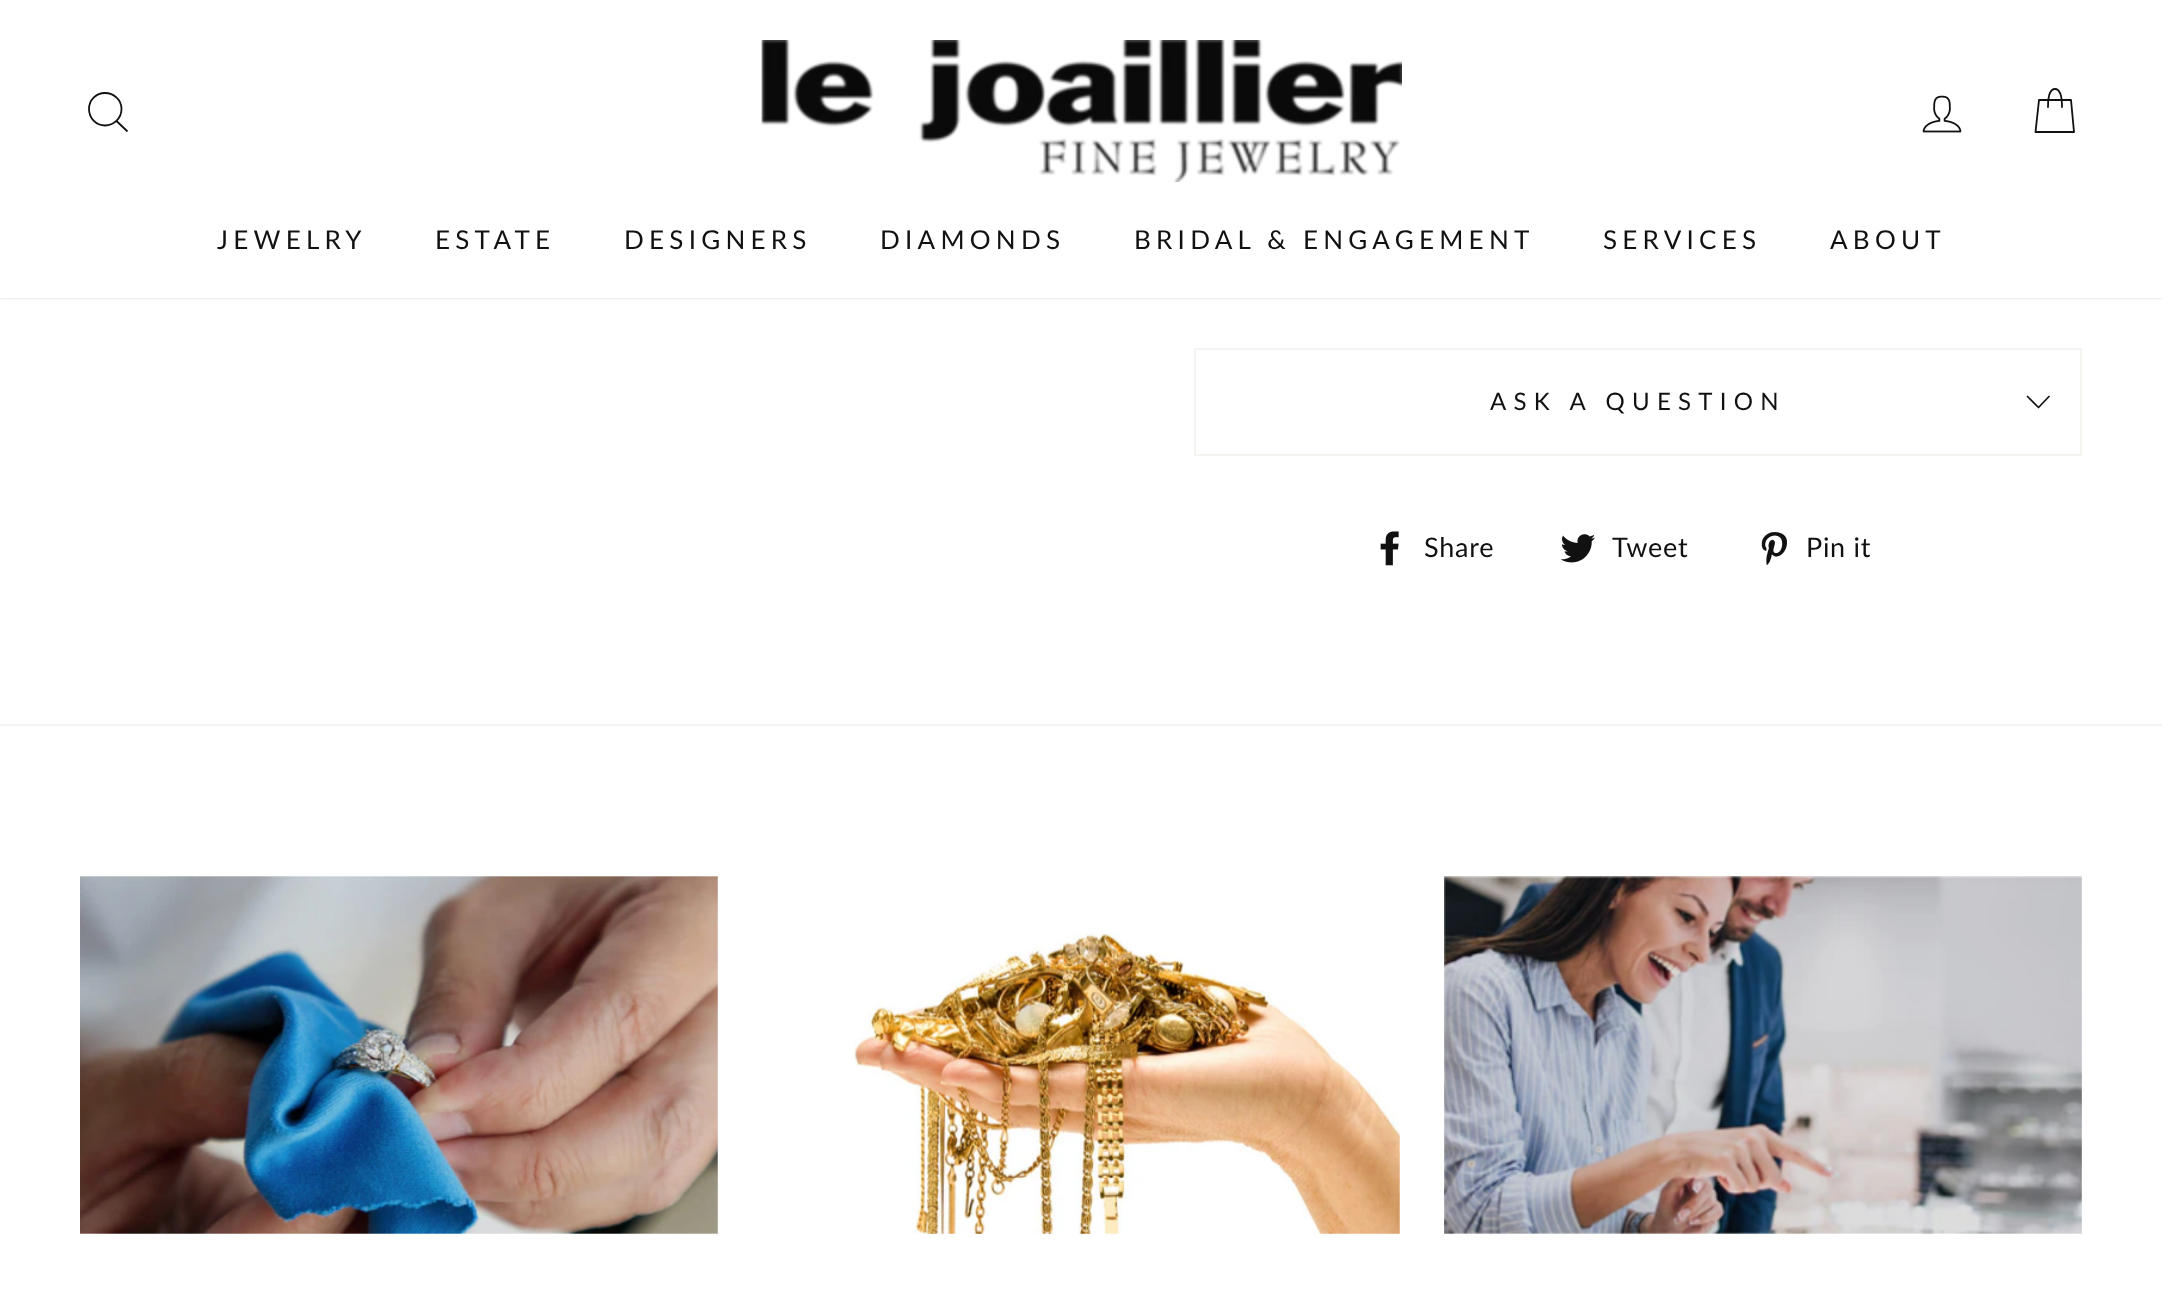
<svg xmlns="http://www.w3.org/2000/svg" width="2162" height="1292">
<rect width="100%" height="100%" fill="#fff"/>
<rect width="2162" height="298" fill="#00000033" filter="blur(1px)"/>
<rect width="2162" height="298" fill="#fff"/>
<path d="M121.5 109c0 9-7.5 16.5-16.5 16.5c-9 0-16-7.5-16-16.5c0-9 7-16 16-16c9 0 16.5 7 16.5 16zm5.5 22l-10.5-10" fill="none" stroke="#111" stroke-width="1.8" stroke-linecap="round" stroke-linejoin="round"/>
<image x="761" y="40" width="641" height="142" href="media/1.png"/>
<image x="1922" y="95" width="40" height="38" href="media/2.png"/>
<path d="M2048 107c0-14 3-18 7-18c4 0 7 4 7 18m-23-7h32l3 32h-38.5z" fill="none" stroke="#111" stroke-width="1.8" stroke-linecap="round" stroke-linejoin="round"/>
<text x="217" y="249" style="font-family:Lato;font-size:26px;letter-spacing:5.25px;fill:#111">JEWELRY</text>
<text x="435" y="249" style="font-family:Lato;font-size:26px;letter-spacing:5.25px;fill:#111">ESTATE</text>
<text x="624" y="249" style="font-family:Lato;font-size:26px;letter-spacing:5.25px;fill:#111">DESIGNERS</text>
<text x="880" y="249" style="font-family:Lato;font-size:26px;letter-spacing:5.25px;fill:#111">DIAMONDS</text>
<text x="1134" y="249" style="font-family:Lato;font-size:26px;letter-spacing:5.25px;fill:#111">BRIDAL &amp; ENGAGEMENT</text>
<text x="1603" y="249" style="font-family:Lato;font-size:26px;letter-spacing:5.25px;fill:#111">SERVICES</text>
<text x="1830" y="249" style="font-family:Lato;font-size:26px;letter-spacing:5.25px;fill:#111">ABOUT</text>
<rect x="1194" y="454" width="888" height="2" fill="#f5f4f0"/>
<rect x="1194" y="348" width="888" height="2" fill="#f5f4f0"/>
<rect x="2080" y="348" width="2" height="106" fill="#f5f4f0"/>
<rect x="1194" y="348" width="2" height="106" fill="#f5f4f0"/>
<text x="1490" y="410" style="font-family:Lato;font-size:24px;letter-spacing:7.25px;fill:#111">ASK A QUESTION</text>
<path d="M2027.5 396.5l11 11l10.5-11" fill="none" stroke="#111" stroke-width="1.7" stroke-linecap="round" stroke-linejoin="round"/>
<image x="1380" y="531" width="19" height="35" href="media/3.png"/>
<text x="1424" y="557" style="font-family:Lato;font-size:27px;letter-spacing:0.75px;fill:#111">Share</text>
<image x="1560" y="534" width="35" height="29" href="media/4.png"/>
<text x="1612" y="557" style="font-family:Lato;font-size:27px;letter-spacing:0.75px;fill:#111">Tweet</text>
<image x="1761" y="532" width="26" height="34" href="media/5.png"/>
<text x="1806" y="557" style="font-family:Lato;font-size:27px;letter-spacing:0.75px;fill:#111">Pin it</text>
<rect y="724" width="2162" height="2" fill="#f5f4f0"/>
<image x="80" y="876" width="638" height="358" href="media/6.png"/>
<image x="853" y="932" width="547" height="302" href="media/7.png"/>
<image x="1444" y="876" width="638" height="358" href="media/8.png"/>
</svg>
